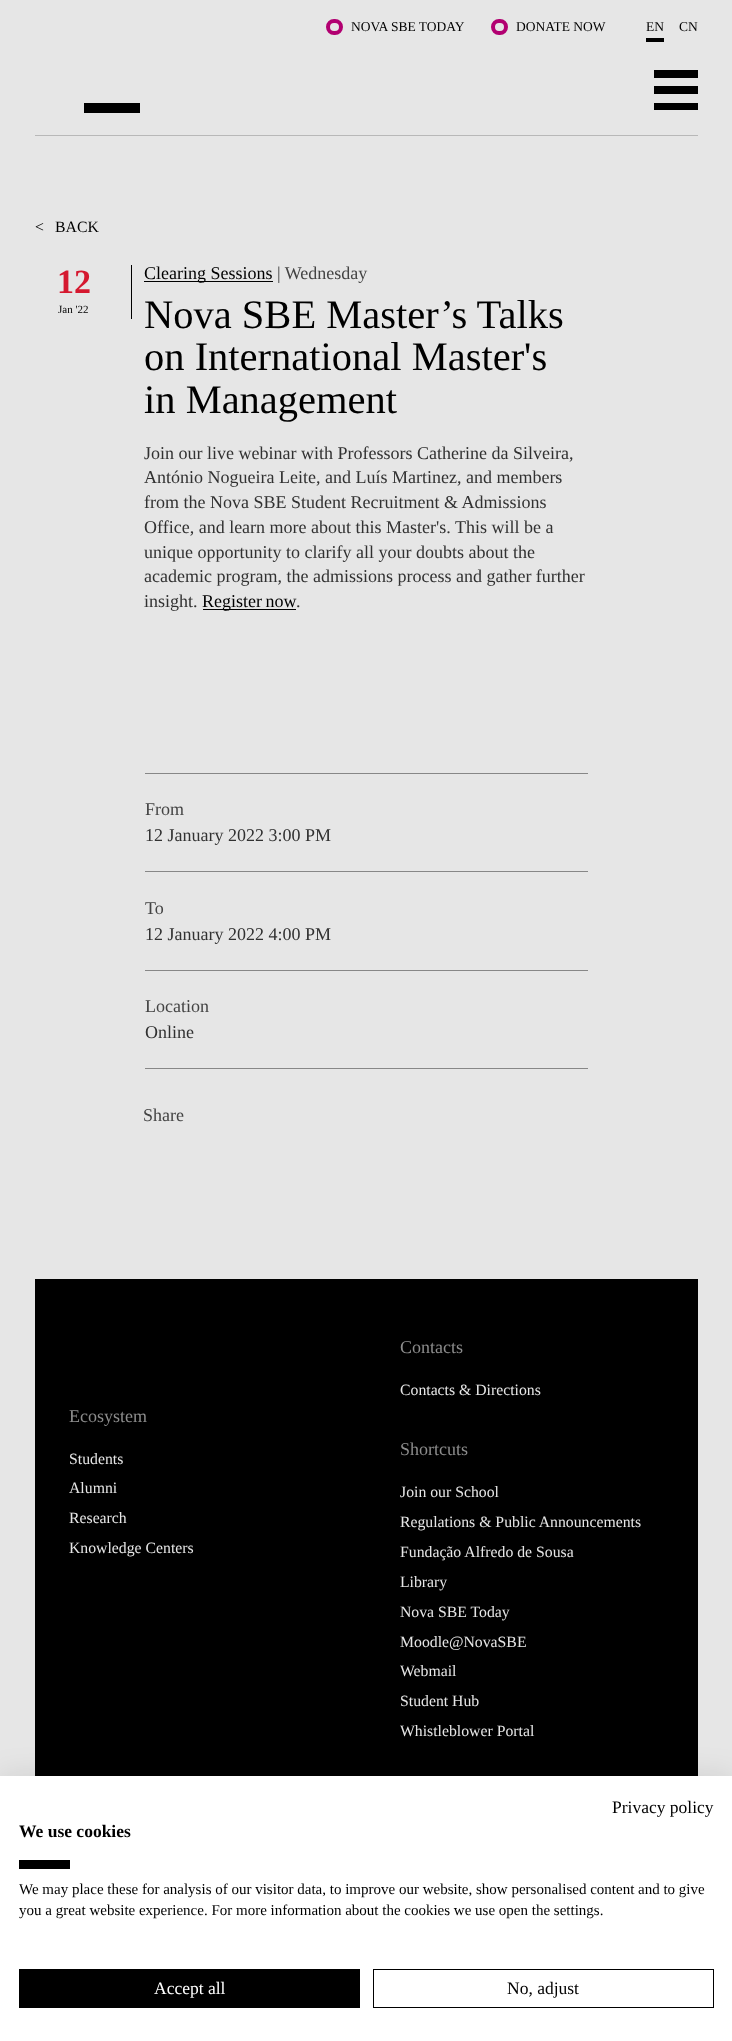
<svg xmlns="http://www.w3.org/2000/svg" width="732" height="2041">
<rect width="100%" height="100%" fill="#e6e6e6"/>
<rect x="328" y="21" width="13" height="12" rx="6" fill="none" stroke="#b20071" stroke-width="4"/>
<text x="351" y="31" style="font-family:Liberation Serif;font-size:13.5px;fill:#000">NOVA SBE TODAY</text>
<rect x="493" y="21" width="13" height="12" rx="6" fill="none" stroke="#b20071" stroke-width="4"/>
<text x="516" y="31" style="font-family:Liberation Serif;font-size:13.5px;fill:#000">DONATE NOW</text>
<text x="646" y="31" style="font-family:Liberation Serif;font-size:13.5px;fill:#000">EN</text>
<rect x="646" y="38" width="18" height="4" fill="#000"/>
<text x="679" y="31" style="font-family:Liberation Serif;font-size:13.5px;fill:#000">CN</text>
<rect x="84" y="103" width="56" height="10" fill="#000"/>
<rect x="654" y="70" width="44" height="8" fill="#000"/>
<rect x="654" y="86" width="44" height="8" fill="#000"/>
<rect x="654" y="103" width="44" height="7" fill="#000"/>
<rect x="35" y="135" width="663" height="1" fill="#b8b8b8"/>
<text x="35" y="232" style="font-family:Liberation Serif;font-size:15.75px;fill:#000">&lt;</text>
<text x="55" y="232" style="font-family:Liberation Serif;font-size:15.75px;fill:#000">BACK</text>
<rect x="131" y="265" width="1" height="54" fill="#000"/>
<text x="57" y="293" style="font-family:Liberation Serif;font-size:34px;font-weight:bold;fill:#d5182f">12</text>
<text x="58" y="313" style="font-family:Liberation Serif;font-size:11px;fill:#000">Jan '22</text>
<rect x="144" y="281" width="129" height="1" fill="#000"/>
<text x="144" y="279" style="font-family:Liberation Serif;font-size:18px;fill:#000">Clearing Sessions</text>
<text x="277" y="279" style="font-family:Liberation Serif;font-size:18px;fill:#434343">| Wednesday</text>
<text x="144" y="328" style="font-family:Liberation Serif;font-size:40.5px;fill:#000">Nova SBE Master’s Talks</text>
<text x="144" y="370" style="font-family:Liberation Serif;font-size:40.5px;fill:#000">on International Master's</text>
<text x="144" y="413" style="font-family:Liberation Serif;font-size:40.5px;fill:#000">in Management</text>
<text x="144" y="459" style="font-family:Liberation Serif;font-size:18px;fill:#313131">Join our live webinar with Professors Catherine da Silveira,</text>
<text x="144" y="483" style="font-family:Liberation Serif;font-size:18px;fill:#313131">António Nogueira Leite, and Luís Martinez, and members</text>
<text x="144" y="508" style="font-family:Liberation Serif;font-size:18px;fill:#313131">from the Nova SBE Student Recruitment &amp; Admissions</text>
<text x="144" y="533" style="font-family:Liberation Serif;font-size:18px;fill:#313131">Office, and learn more about this Master's. This will be a</text>
<text x="144" y="558" style="font-family:Liberation Serif;font-size:18px;fill:#313131">unique opportunity to clarify all your doubts about the</text>
<text x="144" y="582" style="font-family:Liberation Serif;font-size:18px;fill:#313131">academic program, the admissions process and gather further</text>
<text x="144" y="607" style="font-family:Liberation Serif;font-size:18px;fill:#313131">insight.</text>
<rect x="203" y="609" width="93" height="1" fill="#000"/>
<text x="202" y="607" word-spacing="-1" style="font-family:Liberation Serif;font-size:18px;fill:#000">Register now</text>
<text x="296" y="607" style="font-family:Liberation Serif;font-size:18px;fill:#313131">.</text>
<rect x="145" y="773" width="443" height="1" fill="#878787"/>
<text x="145" y="815" style="font-family:Liberation Serif;font-size:18px;fill:#434343">From</text>
<text x="145" y="841" style="font-family:Liberation Serif;font-size:18px;fill:#313131">12 January 2022 3:00 PM</text>
<rect x="145" y="871" width="443" height="1" fill="#878787"/>
<text x="145" y="914" style="font-family:Liberation Serif;font-size:18px;fill:#434343">To</text>
<text x="145" y="940" style="font-family:Liberation Serif;font-size:18px;fill:#313131">12 January 2022 4:00 PM</text>
<rect x="145" y="970" width="443" height="1" fill="#878787"/>
<rect x="145" y="1068" width="443" height="1" fill="#878787"/>
<text x="145" y="1012" style="font-family:Liberation Serif;font-size:18px;fill:#434343">Location</text>
<text x="145" y="1038" style="font-family:Liberation Serif;font-size:18px;fill:#313131">Online</text>
<text x="143" y="1121" style="font-family:Liberation Serif;font-size:18px;fill:#434343">Share</text>
<rect x="35" y="1279" width="663" height="497" fill="#000"/>
<text x="400" y="1353" style="font-family:Liberation Serif;font-size:18px;fill:#8c8c8c">Contacts</text>
<text x="400" y="1395" style="font-family:Liberation Serif;font-size:15.75px;fill:#e6e6e6">Contacts &amp; Directions</text>
<text x="69" y="1422" style="font-family:Liberation Serif;font-size:18px;fill:#8c8c8c">Ecosystem</text>
<text x="69" y="1464" style="font-family:Liberation Serif;font-size:15.75px;fill:#e6e6e6">Students</text>
<text x="69" y="1493" style="font-family:Liberation Serif;font-size:15.75px;fill:#e6e6e6">Alumni</text>
<text x="69" y="1523" style="font-family:Liberation Serif;font-size:15.75px;fill:#e6e6e6">Research</text>
<text x="69" y="1553" style="font-family:Liberation Serif;font-size:15.75px;fill:#e6e6e6">Knowledge Centers</text>
<text x="400" y="1455" style="font-family:Liberation Serif;font-size:18px;fill:#8c8c8c">Shortcuts</text>
<text x="400" y="1497" style="font-family:Liberation Serif;font-size:15.75px;fill:#e6e6e6">Join our School</text>
<text x="400" y="1527" style="font-family:Liberation Serif;font-size:15.75px;fill:#e6e6e6">Regulations &amp; Public Announcements</text>
<text x="400" y="1557" style="font-family:Liberation Serif;font-size:15.75px;fill:#e6e6e6">Fundação Alfredo de Sousa</text>
<text x="400" y="1587" style="font-family:Liberation Serif;font-size:15.75px;fill:#e6e6e6">Library</text>
<text x="400" y="1617" style="font-family:Liberation Serif;font-size:15.75px;fill:#e6e6e6">Nova SBE Today</text>
<text x="400" y="1647" style="font-family:Liberation Serif;font-size:15.75px;fill:#e6e6e6">Moodle@NovaSBE</text>
<text x="400" y="1676" style="font-family:Liberation Serif;font-size:15.75px;fill:#e6e6e6">Webmail</text>
<text x="400" y="1706" style="font-family:Liberation Serif;font-size:15.75px;fill:#e6e6e6">Student Hub</text>
<text x="400" y="1736" style="font-family:Liberation Serif;font-size:15.75px;fill:#e6e6e6">Whistleblower Portal</text>
<rect y="1776" width="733" height="265" fill="#0000001a" filter="blur(15px)"/>
<rect y="1776" width="732" height="265" fill="#fff"/>
<text x="612" y="1813" style="font-family:Liberation Serif;font-size:17.5px;fill:#000">Privacy policy</text>
<text x="19" y="1837" style="font-family:Liberation Serif;font-size:17.5px;font-weight:bold;fill:#000">We use cookies</text>
<rect x="19" y="1860" width="51" height="9" fill="#000"/>
<text x="19" y="1894" style="font-family:Liberation Serif;font-size:15px;fill:#000">We may place these for analysis of our visitor data, to improve our website, show personalised content and to give</text>
<text x="19" y="1915" style="font-family:Liberation Serif;font-size:15px;fill:#000">you a great website experience. For more information about the cookies we use open the settings.</text>
<rect x="19" y="1969" width="341" height="39" fill="#000"/>
<text x="154" y="1994" style="font-family:Liberation Serif;font-size:17.5px;fill:#fff">Accept all</text>
<rect x="373.5" y="1969.5" width="340" height="38" fill="none" stroke="#000"/>
<text x="507" y="1994" style="font-family:Liberation Serif;font-size:17.5px;fill:#000">No, adjust</text>
</svg>
